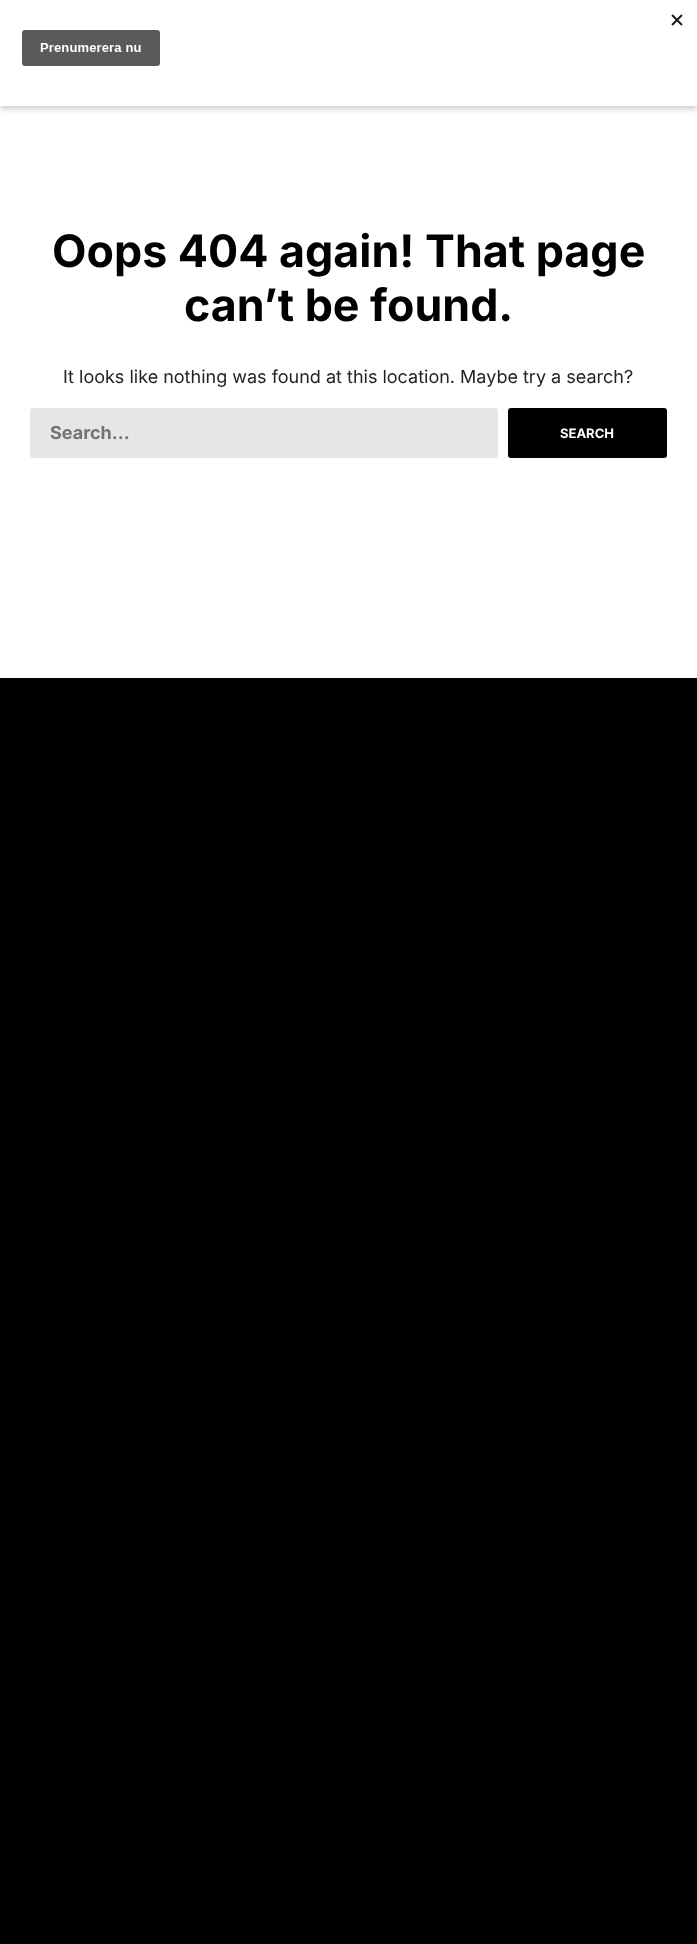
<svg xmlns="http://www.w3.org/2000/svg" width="697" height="1944">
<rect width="100%" height="100%" fill="#fff"/>
<rect y="3" width="697" height="106" fill="#00000033" filter="blur(3px)"/>
<rect width="697" height="106" fill="#fff"/>
<image x="22" y="14" width="661" height="52" href="media/1.png"/>
<text x="52" y="267" style="font-family:Inter;font-size:44.75px;font-weight:bold;fill:#000">Oops 404 again! That page</text>
<text x="184" y="321" style="font-family:Inter;font-size:44.75px;font-weight:bold;fill:#000">can’t be found.</text>
<text x="63" y="383" style="font-family:Inter;font-size:18px;fill:#222">It looks like nothing was found at this location. Maybe try a search?</text>
<rect x="30" y="408" width="468" height="50" rx="3" fill="#e6e6e6"/>
<text x="50" y="439" style="font-family:Inter;font-size:18px;font-weight:bold;fill:#737373">Search...</text>
<rect x="508" y="408" width="159" height="50" rx="3" fill="#000"/>
<text x="560" y="438" style="font-family:Inter;font-size:13px;font-weight:bold;fill:#fff">SEARCH</text>
<rect y="678" width="697" height="1266" fill="#000"/>
</svg>
